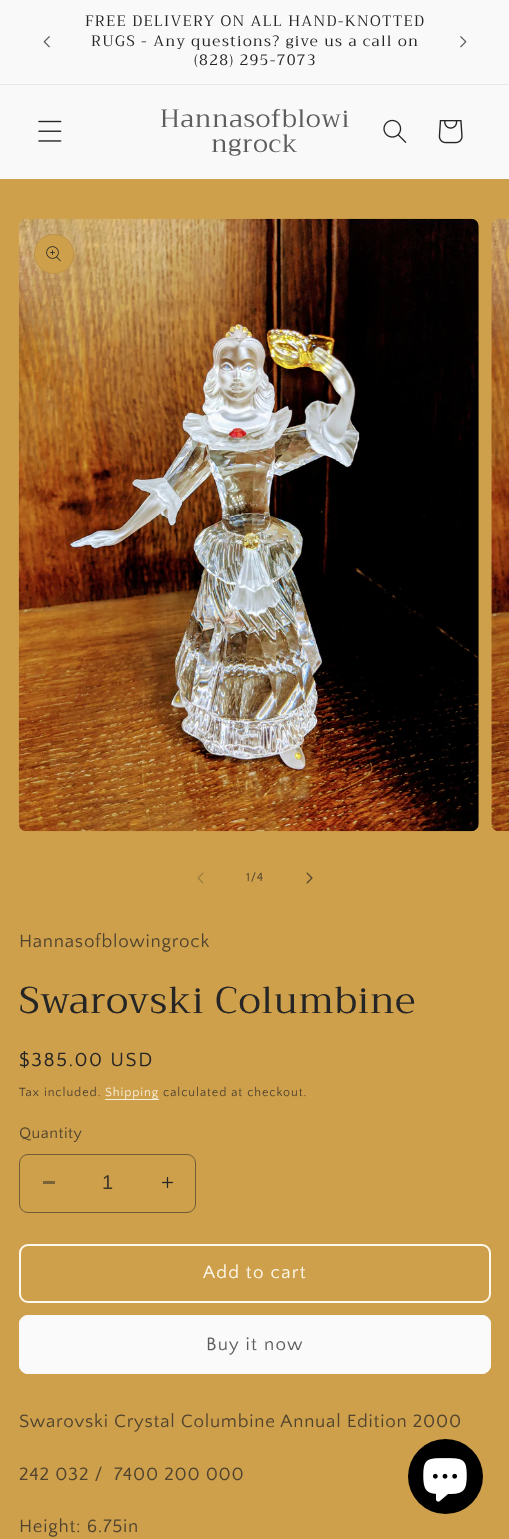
<svg xmlns="http://www.w3.org/2000/svg" width="509" height="1539">
<rect width="100%" height="100%" fill="#cfa04c"/>
<rect width="509" height="84" fill="#f9f9f9"/>
<rect y="84" width="509" height="1" fill="#e8e8e8"/>
<image x="43" y="36" width="7" height="12" href="media/1.png"/>
<text x="85" y="26" style="font-family:Trirong;font-size:15px;letter-spacing:1.25px;fill:#252525">FREE DELIVERY ON ALL HAND-KNOTTED</text>
<text x="91" y="46" style="font-family:Trirong;font-size:15px;letter-spacing:1.25px;fill:#252525">RUGS - Any questions? give us a call on</text>
<text x="194" y="65" style="font-family:Trirong;font-size:15px;letter-spacing:1.25px;fill:#252525">(828) 295-7073</text>
<image x="460" y="36" width="7" height="12" href="media/2.png"/>
<rect y="85" width="509" height="94" fill="#f9f9f9"/>
<image x="38" y="120" width="24" height="22" href="media/3.png"/>
<text x="160" y="127" style="font-family:Trirong;font-size:25px;letter-spacing:0.75px;fill:#5e5d5e">Hannasofblowi</text>
<text x="211" y="152" style="font-family:Trirong;font-size:25px;letter-spacing:0.75px;fill:#5e5d5e">ngrock</text>
<image x="383" y="119" width="24" height="24" href="media/4.png"/>
<image x="438" y="120" width="25" height="24" href="media/5.png"/>
<image x="18" y="218" width="461" height="614" href="media/6.png"/>
<circle cx="54" cy="254" r="20" fill="#cfa04c"/>
<circle cx="54" cy="254" r="19.5" fill="none" stroke="#2525251a"/>
<image x="46" y="246" width="15" height="16" href="media/7.png"/>
<image x="491" y="219" width="18" height="612" href="media/8.png"/>
<path d="M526 234h-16v40h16c-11 0-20-9-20-20c0-11 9-20 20-20z" fill="#cfa04c"/>
<rect x="506.5" y="234.5" width="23" height="39" rx="19.5" fill="none" stroke="#2525251a"/>
<image x="197" y="872" width="7" height="12" href="media/9.png"/>
<text x="246" y="881" style="font-family:Quattrocento Sans;font-size:12.5px;letter-spacing:0.9px;fill:#50442f">1/4</text>
<image x="306" y="872" width="7" height="12" href="media/10.png"/>
<text x="19" y="947" style="font-family:Quattrocento Sans;font-size:18.75px;letter-spacing:0.75px;fill:#50442f">Hannasofblowingrock</text>
<text x="19" y="1013" style="font-family:Trirong;font-size:37.5px;letter-spacing:0.75px;fill:#252525">Swarovski Columbine</text>
<text x="19" y="1066" style="font-family:Quattrocento Sans;font-size:20px;letter-spacing:1.6px;fill:#252525">$385.00 USD</text>
<text x="19" y="1096" style="font-family:Quattrocento Sans;font-size:12.5px;letter-spacing:0.9px;fill:#50442f">Tax included.</text>
<rect x="105" y="1099" width="54" height="1" fill="#f6ecd7"/>
<text x="105" y="1096" style="font-family:Quattrocento Sans;font-size:12.5px;letter-spacing:0.9px;fill:#f6ecd7">Shipping</text>
<text x="163" y="1096" style="font-family:Quattrocento Sans;font-size:12.5px;letter-spacing:0.9px;fill:#50442f">calculated at checkout.</text>
<text x="19" y="1138" style="font-family:Quattrocento Sans;font-size:16px;letter-spacing:0.5px;fill:#50442f">Quantity</text>
<rect x="43" y="1181" width="12" height="3" fill="#7a6339"/>
<image x="161" y="1176" width="13" height="13" href="media/11.png"/>
<rect x="19.5" y="1154.5" width="176" height="58" rx="8.5" fill="none" stroke="#715c37"/>
<text x="102" y="1189" style="font-family:Liberation Sans;font-size:20px;fill:#3f372b">1</text>
<rect x="20" y="1245" width="470" height="57" rx="8" fill="none" stroke="#fdf9ef" stroke-width="2"/>
<text x="203" y="1278" style="font-family:Quattrocento Sans;font-size:18.75px;letter-spacing:1.25px;fill:#fdf9ef">Add to cart</text>
<rect x="19" y="1315" width="472" height="59" rx="9" fill="#fafafa"/>
<rect x="19.5" y="1315.5" width="471" height="58" rx="8.5" fill="none" stroke="#fafafa"/>
<text x="206" y="1350" style="font-family:Quattrocento Sans;font-size:18.75px;letter-spacing:1.25px;fill:#5e5d5e">Buy it now</text>
<text x="19" y="1427" style="font-family:Quattrocento Sans;font-size:18.75px;letter-spacing:0.75px;fill:#50442f">Swarovski Crystal Columbine Annual Edition 2000</text>
<text x="19" y="1480" style="font-family:Quattrocento Sans;font-size:18.75px;letter-spacing:0.75px;fill:#50442f" xml:space="preserve">242 032 /  7400 200 000</text>
<text x="19" y="1532" style="font-family:Quattrocento Sans;font-size:18.75px;letter-spacing:0.75px;fill:#50442f">Height: 6.75in</text>
<circle cx="445.5" cy="1476.5" r="37.5" fill="#000"/>
<image x="423" y="1458" width="44" height="44" href="media/12.png"/>
</svg>
